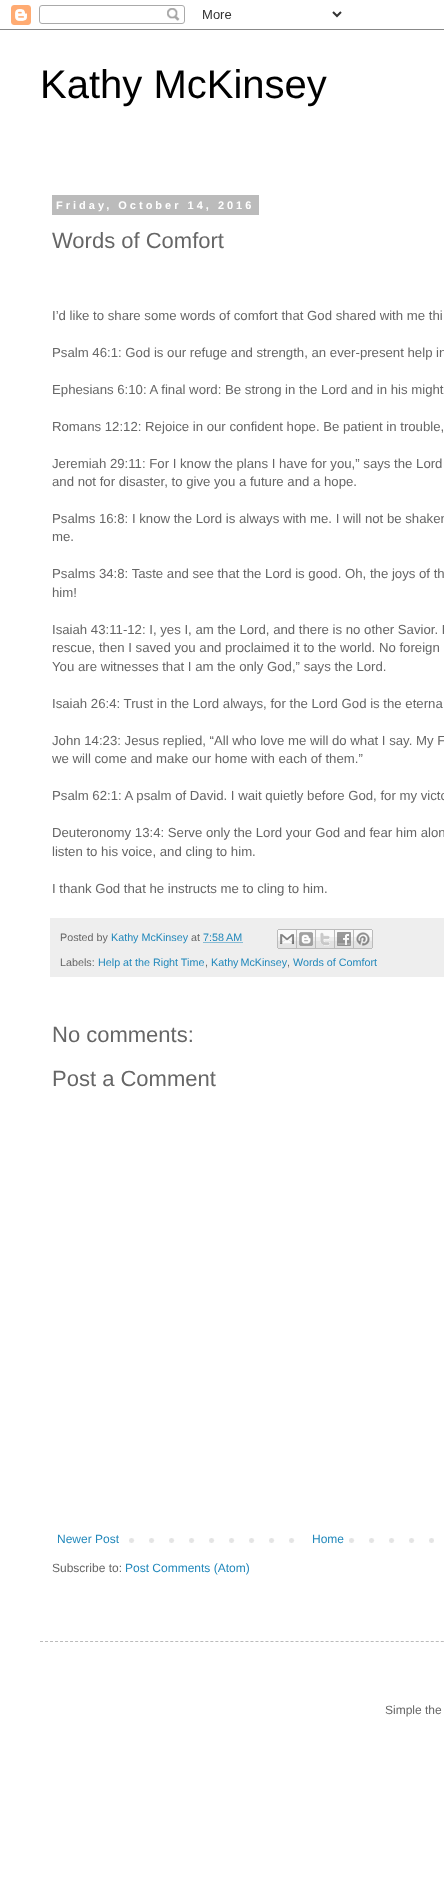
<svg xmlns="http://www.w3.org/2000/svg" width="444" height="1882">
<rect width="100%" height="100%" fill="#fff"/>
<image x="0" y="5" width="444" height="25" href="media/1.png"/>
<text x="40" y="98" style="font-family:Liberation Sans;font-size:40px;fill:#000">Kathy McKinsey</text>
<rect x="52" y="195" width="207" height="20" fill="#bbb"/>
<text x="56" y="209" style="font-family:Liberation Sans;font-size:11px;font-weight:bold;letter-spacing:3px;fill:#fff">Friday, October 14, 2016</text>
<text x="52" y="248" style="font-family:Liberation Sans;font-size:22px;fill:#666">Words of Comfort</text>
<text x="52" y="320" style="font-family:Liberation Sans;font-size:13.2px;fill:#666">I’d like to share some words of comfort that God shared with me thi</text>
<text x="52" y="357" style="font-family:Liberation Sans;font-size:13.2px;fill:#666">Psalm 46:1: God is our refuge and strength, an ever-present help in</text>
<text x="52" y="394" style="font-family:Liberation Sans;font-size:13.2px;fill:#666">Ephesians 6:10: A final word: Be strong in the Lord and in his might</text>
<text x="52" y="431" style="font-family:Liberation Sans;font-size:13.2px;fill:#666">Romans 12:12: Rejoice in our confident hope. Be patient in trouble,</text>
<text x="52" y="468" style="font-family:Liberation Sans;font-size:13.2px;fill:#666">Jeremiah 29:11: For I know the plans I have for you,” says the Lord</text>
<text x="52" y="486" style="font-family:Liberation Sans;font-size:13.2px;fill:#666">and not for disaster, to give you a future and a hope.</text>
<text x="52" y="523" style="font-family:Liberation Sans;font-size:13.2px;fill:#666">Psalms 16:8: I know the Lord is always with me. I will not be shaken</text>
<text x="52" y="541" style="font-family:Liberation Sans;font-size:13.2px;fill:#666">me.</text>
<text x="52" y="578" style="font-family:Liberation Sans;font-size:13.2px;fill:#666">Psalms 34:8: Taste and see that the Lord is good. Oh, the joys of th</text>
<text x="52" y="597" style="font-family:Liberation Sans;font-size:13.2px;fill:#666">him!</text>
<text x="52" y="634" style="font-family:Liberation Sans;font-size:13.2px;fill:#666">Isaiah 43:11-12: I, yes I, am the Lord, and there is no other Savior. F</text>
<text x="52" y="652" style="font-family:Liberation Sans;font-size:13.2px;fill:#666">rescue, then I saved you and proclaimed it to the world. No foreign</text>
<text x="52" y="671" style="font-family:Liberation Sans;font-size:13.2px;fill:#666">You are witnesses that I am the only God,” says the Lord.</text>
<text x="52" y="708" style="font-family:Liberation Sans;font-size:13.2px;fill:#666">Isaiah 26:4: Trust in the Lord always, for the Lord God is the eterna</text>
<text x="52" y="745" style="font-family:Liberation Sans;font-size:13.2px;fill:#666">John 14:23: Jesus replied, “All who love me will do what I say. My F</text>
<text x="52" y="763" style="font-family:Liberation Sans;font-size:13.2px;fill:#666">we will come and make our home with each of them.”</text>
<text x="52" y="800" style="font-family:Liberation Sans;font-size:13.2px;fill:#666">Psalm 62:1: A psalm of David. I wait quietly before God, for my victo</text>
<text x="52" y="837" style="font-family:Liberation Sans;font-size:13.2px;fill:#666">Deuteronomy 13:4: Serve only the Lord your God and fear him alon</text>
<text x="52" y="856" style="font-family:Liberation Sans;font-size:13.2px;fill:#666">listen to his voice, and cling to him.</text>
<text x="52" y="893" style="font-family:Liberation Sans;font-size:13.2px;fill:#666">I thank God that he instructs me to cling to him.</text>
<rect x="50" y="918" width="394" height="59" fill="#eee"/>
<text x="60" y="941" style="font-family:Liberation Sans;font-size:10.75px;fill:#666">Posted by</text>
<text x="111" y="941" style="font-family:Liberation Sans;font-size:10.75px;fill:#28b">Kathy McKinsey</text>
<text x="191" y="941" style="font-family:Liberation Sans;font-size:10.75px;fill:#666">at</text>
<text x="203" y="941" style="font-family:Liberation Sans;font-size:10.75px;fill:#28b">7:58 AM</text>
<path d="M203.5 942.5h39.5" fill="none" stroke="#28b" stroke-dasharray="1 1"/>
<image x="277" y="929" width="20" height="20" href="media/2.png"/>
<image x="297" y="929" width="19" height="20" href="media/3.png"/>
<image x="316" y="929" width="19" height="20" href="media/4.png"/>
<image x="335" y="929" width="19" height="20" href="media/5.png"/>
<image x="354" y="929" width="19" height="20" href="media/6.png"/>
<text x="60" y="966" style="font-family:Liberation Sans;font-size:10.75px;fill:#666">Labels:</text>
<text x="98" y="966" style="font-family:Liberation Sans;font-size:10.75px;fill:#28b">Help at the Right Time</text>
<text x="205" y="966" style="font-family:Liberation Sans;font-size:10.75px;fill:#666">,</text>
<text x="211" y="966" word-spacing="-1" style="font-family:Liberation Sans;font-size:10.75px;fill:#28b">Kathy McKinsey</text>
<text x="287" y="966" style="font-family:Liberation Sans;font-size:10.75px;fill:#666">,</text>
<text x="293" y="966" style="font-family:Liberation Sans;font-size:10.75px;fill:#28b">Words of Comfort</text>
<text x="52" y="1042" style="font-family:Liberation Sans;font-size:22px;fill:#666">No comments:</text>
<text x="52" y="1086" style="font-family:Liberation Sans;font-size:22px;fill:#666">Post a Comment</text>
<image x="129" y="1538" width="305" height="5" href="media/7.png"/>
<text x="57" y="1543" style="font-family:Liberation Sans;font-size:12px;fill:#28b">Newer Post</text>
<rect x="309" y="1538" width="26" height="5" fill="#fff"/>
<text x="312" y="1543" style="font-family:Liberation Sans;font-size:12px;fill:#28b">Home</text>
<text x="52" y="1572" style="font-family:Liberation Sans;font-size:12px;fill:#666">Subscribe to:</text>
<text x="125" y="1572" style="font-family:Liberation Sans;font-size:12px;fill:#28b">Post Comments (Atom)</text>
<path d="M40 1641.5h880" fill="none" stroke="#bbb" stroke-dasharray="3 2.01"/>
<text x="385" y="1714" style="font-family:Liberation Sans;font-size:12px;fill:#666">Simple the</text>
</svg>
